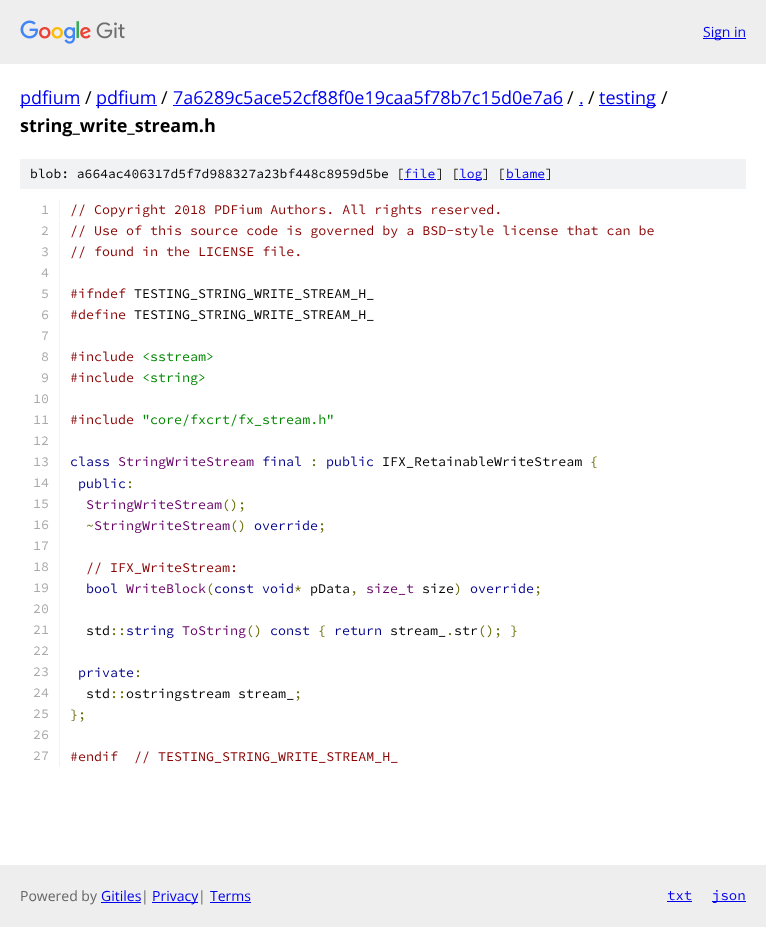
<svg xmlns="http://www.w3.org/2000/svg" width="766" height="927">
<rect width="100%" height="100%" fill="#fff"/>
<rect width="766" height="64" fill="#eee"/>
<image x="20" y="20" width="105" height="24" href="media/1.png"/>
<rect x="703" y="38" width="43" height="1" fill="#00e"/>
<text x="703" y="37" style="font-family:Open Sans;font-size:14px;fill:#00e">Sign in</text>
<rect x="20" y="105" width="60" height="1" fill="#00e"/>
<text x="20" y="104" style="font-family:Open Sans;font-size:18px;fill:#00e">pdfium</text>
<text x="85" y="104" style="font-family:Open Sans;font-size:18px;fill:#000">/</text>
<rect x="96" y="105" width="61" height="1" fill="#00e"/>
<text x="96" y="104" style="font-family:Open Sans;font-size:18px;fill:#00e">pdfium</text>
<text x="161" y="104" style="font-family:Open Sans;font-size:18px;fill:#000">/</text>
<text x="173" y="104" style="font-family:Open Sans;font-size:18px;fill:#00e">7a6289c5ace52cf88f0e19caa5f78b7c15d0e7a6</text>
<rect x="173" y="105" width="390" height="1" fill="#00e"/>
<text x="567" y="104" style="font-family:Open Sans;font-size:18px;fill:#000">/</text>
<text x="579" y="104" style="font-family:Open Sans;font-size:18px;fill:#00e">.</text>
<rect x="579" y="105" width="4" height="1" fill="#00e"/>
<text x="588" y="104" style="font-family:Open Sans;font-size:18px;fill:#000">/</text>
<rect x="599" y="105" width="57" height="1" fill="#00e"/>
<text x="599" y="104" style="font-family:Open Sans;font-size:18px;fill:#00e">testing</text>
<text x="661" y="104" style="font-family:Open Sans;font-size:18px;fill:#000">/</text>
<text x="20" y="132" style="font-family:Open Sans;font-size:18px;font-weight:bold;fill:#000">string_write_stream.h</text>
<rect x="20" y="159" width="726" height="30" fill="#f1f2f3"/>
<text x="30" y="178" style="font-family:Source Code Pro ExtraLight;font-size:13px;font-weight:200;fill:#000">blob: a664ac406317d5f7d988327a23bf448c8959d5be [</text>
<text x="404" y="178" style="font-family:Source Code Pro ExtraLight;font-size:13px;font-weight:200;fill:#00e">file</text>
<rect x="404" y="179" width="32" height="1" fill="#00e"/>
<text x="436" y="178" style="font-family:Source Code Pro ExtraLight;font-size:13px;font-weight:200;fill:#000">] [</text>
<rect x="459" y="179" width="23" height="1" fill="#00e"/>
<text x="459" y="178" style="font-family:Source Code Pro ExtraLight;font-size:13px;font-weight:200;fill:#00e">log</text>
<text x="482" y="178" style="font-family:Source Code Pro ExtraLight;font-size:13px;font-weight:200;fill:#000">] [</text>
<text x="506" y="178" style="font-family:Source Code Pro ExtraLight;font-size:13px;font-weight:200;fill:#00e">blame</text>
<rect x="506" y="179" width="39" height="1" fill="#00e"/>
<text x="545" y="178" style="font-family:Source Code Pro ExtraLight;font-size:13px;font-weight:200;fill:#000">]</text>
<rect x="59" y="200" width="1" height="20" fill="#f1f2f3"/>
<text x="41" y="214" style="font-family:Source Code Pro ExtraLight;font-size:13.35px;font-weight:200;fill:#aaa">1</text>
<text x="70" y="214" style="font-family:Source Code Pro ExtraLight;font-size:13.35px;font-weight:200;fill:#800">// Copyright 2018 PDFium Authors. All rights reserved.</text>
<rect x="59" y="221" width="1" height="20" fill="#f1f2f3"/>
<text x="41" y="235" style="font-family:Source Code Pro ExtraLight;font-size:13.35px;font-weight:200;fill:#aaa">2</text>
<text x="70" y="235" style="font-family:Source Code Pro ExtraLight;font-size:13.35px;font-weight:200;fill:#800">// Use of this source code is governed by a BSD-style license that can be</text>
<rect x="59" y="242" width="1" height="525" fill="#f1f2f3"/>
<text x="41" y="256" style="font-family:Source Code Pro ExtraLight;font-size:13.35px;font-weight:200;fill:#aaa">3</text>
<text x="70" y="256" style="font-family:Source Code Pro ExtraLight;font-size:13.35px;font-weight:200;fill:#800">// found in the LICENSE file.</text>
<text x="41" y="277" style="font-family:Source Code Pro ExtraLight;font-size:13.35px;font-weight:200;fill:#aaa">4</text>
<text x="41" y="298" style="font-family:Source Code Pro ExtraLight;font-size:13.35px;font-weight:200;fill:#aaa">5</text>
<text x="70" y="298" style="font-family:Source Code Pro ExtraLight;font-size:13.35px;font-weight:200;fill:#800">#ifndef</text>
<text x="134" y="298" style="font-family:Source Code Pro ExtraLight;font-size:13.35px;font-weight:200;fill:#000">TESTING_STRING_WRITE_STREAM_H_</text>
<text x="41" y="319" style="font-family:Source Code Pro ExtraLight;font-size:13.35px;font-weight:200;fill:#aaa">6</text>
<text x="70" y="319" style="font-family:Source Code Pro ExtraLight;font-size:13.35px;font-weight:200;fill:#800">#define</text>
<text x="134" y="319" style="font-family:Source Code Pro ExtraLight;font-size:13.35px;font-weight:200;fill:#000">TESTING_STRING_WRITE_STREAM_H_</text>
<text x="41" y="340" style="font-family:Source Code Pro ExtraLight;font-size:13.35px;font-weight:200;fill:#aaa">7</text>
<text x="41" y="361" style="font-family:Source Code Pro ExtraLight;font-size:13.35px;font-weight:200;fill:#aaa">8</text>
<text x="70" y="361" style="font-family:Source Code Pro ExtraLight;font-size:13.35px;font-weight:200;fill:#800">#include</text>
<text x="142" y="361" style="font-family:Source Code Pro ExtraLight;font-size:13.35px;font-weight:200;fill:#080">&lt;sstream&gt;</text>
<text x="41" y="382" style="font-family:Source Code Pro ExtraLight;font-size:13.35px;font-weight:200;fill:#aaa">9</text>
<text x="70" y="382" style="font-family:Source Code Pro ExtraLight;font-size:13.35px;font-weight:200;fill:#800">#include</text>
<text x="142" y="382" style="font-family:Source Code Pro ExtraLight;font-size:13.35px;font-weight:200;fill:#080">&lt;string&gt;</text>
<text x="33" y="403" style="font-family:Source Code Pro ExtraLight;font-size:13.35px;font-weight:200;fill:#aaa">10</text>
<text x="33" y="424" style="font-family:Source Code Pro ExtraLight;font-size:13.35px;font-weight:200;fill:#aaa">11</text>
<text x="70" y="424" style="font-family:Source Code Pro ExtraLight;font-size:13.35px;font-weight:200;fill:#800">#include</text>
<text x="142" y="424" style="font-family:Source Code Pro ExtraLight;font-size:13.35px;font-weight:200;fill:#080">"core/fxcrt/fx_stream.h"</text>
<text x="33" y="445" style="font-family:Source Code Pro ExtraLight;font-size:13.35px;font-weight:200;fill:#aaa">12</text>
<text x="33" y="466" style="font-family:Source Code Pro ExtraLight;font-size:13.35px;font-weight:200;fill:#aaa">13</text>
<text x="70" y="466" style="font-family:Source Code Pro ExtraLight;font-size:13.35px;font-weight:200;fill:#008">class</text>
<text x="118" y="466" style="font-family:Source Code Pro ExtraLight;font-size:13.35px;font-weight:200;fill:#606">StringWriteStream</text>
<text x="262" y="466" style="font-family:Source Code Pro ExtraLight;font-size:13.35px;font-weight:200;fill:#008">final</text>
<text x="310" y="466" style="font-family:Source Code Pro ExtraLight;font-size:13.35px;font-weight:200;fill:#660">:</text>
<text x="326" y="466" style="font-family:Source Code Pro ExtraLight;font-size:13.35px;font-weight:200;fill:#008">public</text>
<text x="382" y="466" style="font-family:Source Code Pro ExtraLight;font-size:13.35px;font-weight:200;fill:#000">IFX_RetainableWriteStream</text>
<text x="590" y="466" style="font-family:Source Code Pro ExtraLight;font-size:13.35px;font-weight:200;fill:#660">{</text>
<text x="33" y="487" style="font-family:Source Code Pro ExtraLight;font-size:13.35px;font-weight:200;fill:#aaa">14</text>
<text x="78" y="488" style="font-family:Source Code Pro ExtraLight;font-size:13.35px;font-weight:200;fill:#008">public</text>
<text x="126" y="488" style="font-family:Source Code Pro ExtraLight;font-size:13.35px;font-weight:200;fill:#660">:</text>
<text x="33" y="508" style="font-family:Source Code Pro ExtraLight;font-size:13.35px;font-weight:200;fill:#aaa">15</text>
<text x="86" y="509" style="font-family:Source Code Pro ExtraLight;font-size:13.35px;font-weight:200;fill:#606">StringWriteStream</text>
<text x="222" y="509" style="font-family:Source Code Pro ExtraLight;font-size:13.35px;font-weight:200;fill:#660">();</text>
<text x="33" y="529" style="font-family:Source Code Pro ExtraLight;font-size:13.35px;font-weight:200;fill:#aaa">16</text>
<text x="86" y="530" style="font-family:Source Code Pro ExtraLight;font-size:13.35px;font-weight:200;fill:#660">~</text>
<text x="94" y="530" style="font-family:Source Code Pro ExtraLight;font-size:13.35px;font-weight:200;fill:#606">StringWriteStream</text>
<text x="230" y="530" style="font-family:Source Code Pro ExtraLight;font-size:13.35px;font-weight:200;fill:#660">()</text>
<text x="254" y="530" style="font-family:Source Code Pro ExtraLight;font-size:13.35px;font-weight:200;fill:#008">override</text>
<text x="318" y="530" style="font-family:Source Code Pro ExtraLight;font-size:13.35px;font-weight:200;fill:#660">;</text>
<text x="33" y="550" style="font-family:Source Code Pro ExtraLight;font-size:13.35px;font-weight:200;fill:#aaa">17</text>
<text x="33" y="571" style="font-family:Source Code Pro ExtraLight;font-size:13.35px;font-weight:200;fill:#aaa">18</text>
<text x="86" y="572" style="font-family:Source Code Pro ExtraLight;font-size:13.35px;font-weight:200;fill:#800">// IFX_WriteStream:</text>
<text x="33" y="592" style="font-family:Source Code Pro ExtraLight;font-size:13.35px;font-weight:200;fill:#aaa">19</text>
<text x="86" y="593" style="font-family:Source Code Pro ExtraLight;font-size:13.35px;font-weight:200;fill:#008">bool</text>
<text x="126" y="593" style="font-family:Source Code Pro ExtraLight;font-size:13.35px;font-weight:200;fill:#606">WriteBlock</text>
<text x="206" y="593" style="font-family:Source Code Pro ExtraLight;font-size:13.35px;font-weight:200;fill:#660">(</text>
<text x="214" y="593" style="font-family:Source Code Pro ExtraLight;font-size:13.35px;font-weight:200;fill:#008">const void</text>
<text x="294" y="593" style="font-family:Source Code Pro ExtraLight;font-size:13.35px;font-weight:200;fill:#660">*</text>
<text x="310" y="593" style="font-family:Source Code Pro ExtraLight;font-size:13.35px;font-weight:200;fill:#000">pData</text>
<text x="350" y="593" style="font-family:Source Code Pro ExtraLight;font-size:13.35px;font-weight:200;fill:#660">,</text>
<text x="366" y="593" style="font-family:Source Code Pro ExtraLight;font-size:13.35px;font-weight:200;fill:#606">size_t</text>
<text x="422" y="593" style="font-family:Source Code Pro ExtraLight;font-size:13.35px;font-weight:200;fill:#000">size</text>
<text x="454" y="593" style="font-family:Source Code Pro ExtraLight;font-size:13.35px;font-weight:200;fill:#660">)</text>
<text x="470" y="593" style="font-family:Source Code Pro ExtraLight;font-size:13.35px;font-weight:200;fill:#008">override</text>
<text x="534" y="593" style="font-family:Source Code Pro ExtraLight;font-size:13.35px;font-weight:200;fill:#660">;</text>
<text x="33" y="613" style="font-family:Source Code Pro ExtraLight;font-size:13.35px;font-weight:200;fill:#aaa">20</text>
<text x="33" y="634" style="font-family:Source Code Pro ExtraLight;font-size:13.35px;font-weight:200;fill:#aaa">21</text>
<text x="86" y="635" style="font-family:Source Code Pro ExtraLight;font-size:13.35px;font-weight:200;fill:#000">std</text>
<text x="110" y="635" style="font-family:Source Code Pro ExtraLight;font-size:13.35px;font-weight:200;fill:#660">::</text>
<text x="126" y="635" style="font-family:Source Code Pro ExtraLight;font-size:13.35px;font-weight:200;fill:#008">string</text>
<text x="182" y="635" style="font-family:Source Code Pro ExtraLight;font-size:13.35px;font-weight:200;fill:#606">ToString</text>
<text x="246" y="635" style="font-family:Source Code Pro ExtraLight;font-size:13.35px;font-weight:200;fill:#660">()</text>
<text x="270" y="635" style="font-family:Source Code Pro ExtraLight;font-size:13.35px;font-weight:200;fill:#008">const</text>
<text x="318" y="635" style="font-family:Source Code Pro ExtraLight;font-size:13.35px;font-weight:200;fill:#660">{</text>
<text x="334" y="635" style="font-family:Source Code Pro ExtraLight;font-size:13.35px;font-weight:200;fill:#008">return</text>
<text x="390" y="635" style="font-family:Source Code Pro ExtraLight;font-size:13.35px;font-weight:200;fill:#000">stream_ str</text>
<text x="478" y="635" style="font-family:Source Code Pro ExtraLight;font-size:13.35px;font-weight:200;fill:#660">(); }</text>
<text x="446" y="635" style="font-family:Source Code Pro ExtraLight;font-size:13.35px;font-weight:200;fill:#660">.</text>
<text x="33" y="655" style="font-family:Source Code Pro ExtraLight;font-size:13.35px;font-weight:200;fill:#aaa">22</text>
<text x="33" y="676" style="font-family:Source Code Pro ExtraLight;font-size:13.35px;font-weight:200;fill:#aaa">23</text>
<text x="78" y="677" style="font-family:Source Code Pro ExtraLight;font-size:13.35px;font-weight:200;fill:#008">private</text>
<text x="134" y="677" style="font-family:Source Code Pro ExtraLight;font-size:13.35px;font-weight:200;fill:#660">:</text>
<text x="33" y="697" style="font-family:Source Code Pro ExtraLight;font-size:13.35px;font-weight:200;fill:#aaa">24</text>
<text x="86" y="698" style="font-family:Source Code Pro ExtraLight;font-size:13.35px;font-weight:200;fill:#000">std</text>
<text x="110" y="698" style="font-family:Source Code Pro ExtraLight;font-size:13.35px;font-weight:200;fill:#660">::</text>
<text x="126" y="698" style="font-family:Source Code Pro ExtraLight;font-size:13.35px;font-weight:200;fill:#000">ostringstream stream_</text>
<text x="294" y="698" style="font-family:Source Code Pro ExtraLight;font-size:13.35px;font-weight:200;fill:#660">;</text>
<text x="33" y="718" style="font-family:Source Code Pro ExtraLight;font-size:13.35px;font-weight:200;fill:#aaa">25</text>
<text x="70" y="719" style="font-family:Source Code Pro ExtraLight;font-size:13.35px;font-weight:200;fill:#660">};</text>
<text x="33" y="739" style="font-family:Source Code Pro ExtraLight;font-size:13.35px;font-weight:200;fill:#aaa">26</text>
<text x="33" y="760" style="font-family:Source Code Pro ExtraLight;font-size:13.35px;font-weight:200;fill:#aaa">27</text>
<text x="70" y="761" style="font-family:Source Code Pro ExtraLight;font-size:13.35px;font-weight:200;fill:#800">#endif</text>
<text x="134" y="761" style="font-family:Source Code Pro ExtraLight;font-size:13.35px;font-weight:200;fill:#800">// TESTING_STRING_WRITE_STREAM_H_</text>
<rect y="865" width="766" height="62" fill="#eee"/>
<text x="20" y="901" style="font-family:Open Sans;font-size:14px;fill:#666">Powered by</text>
<text x="101" y="901" style="font-family:Open Sans;font-size:14px;fill:#00e">Gitiles</text>
<rect x="101" y="902" width="40" height="1" fill="#00e"/>
<text x="141" y="901" style="font-family:Open Sans;font-size:14px;fill:#666">|</text>
<rect x="152" y="902" width="46" height="1" fill="#00e"/>
<text x="152" y="901" style="font-family:Open Sans;font-size:14px;fill:#00e">Privacy</text>
<text x="198" y="901" style="font-family:Open Sans;font-size:14px;fill:#666">|</text>
<text x="210" y="901" style="font-family:Open Sans;font-size:14px;fill:#00e">Terms</text>
<rect x="210" y="902" width="41" height="1" fill="#00e"/>
<text x="667" y="900" style="font-family:Source Code Pro ExtraLight;font-size:14px;font-weight:200;fill:#00e">txt</text>
<rect x="667" y="901" width="25" height="1" fill="#00e"/>
<rect x="712" y="901" width="34" height="1" fill="#00e"/>
<text x="712" y="900" style="font-family:Source Code Pro ExtraLight;font-size:14px;font-weight:200;fill:#00e">json</text>
</svg>
